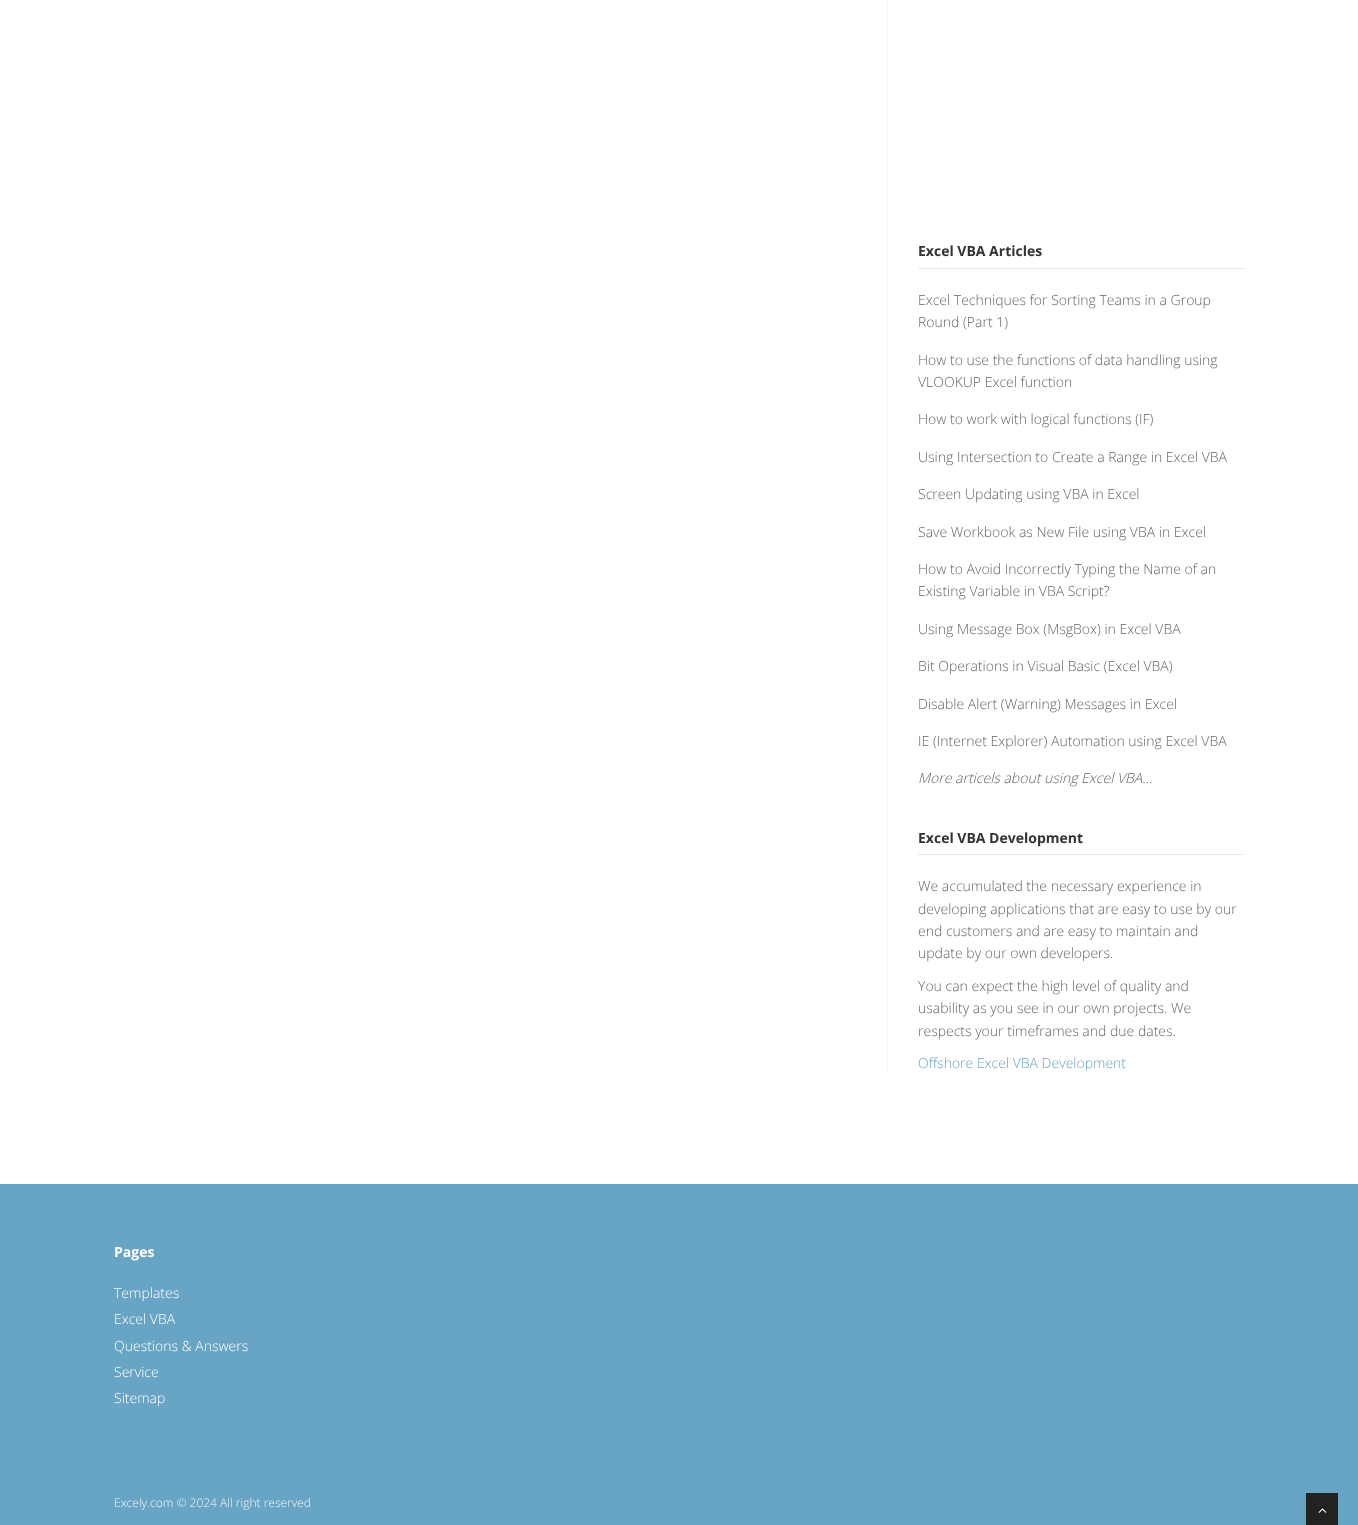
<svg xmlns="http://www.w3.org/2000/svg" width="1358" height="1525">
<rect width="100%" height="100%" fill="#fff"/>
<rect x="888" width="1" height="1074" fill="#fcfcfc"/>
<rect x="887" width="1" height="1074" fill="#f5f5f5"/>
<rect x="918" y="268" width="326" height="1" fill="#e9e9e9"/>
<text x="918" y="256" style="font-family:Open Sans;font-size:14px;font-weight:bold;fill:#333">Excel VBA Articles</text>
<text x="918" y="305" style="font-family:Open Sans;font-size:14px;font-weight:300;fill:#656565">Excel Techniques for Sorting Teams in a Group</text>
<text x="918" y="327" style="font-family:Open Sans;font-size:14px;font-weight:300;fill:#656565">Round (Part 1)</text>
<text x="918" y="365" style="font-family:Open Sans;font-size:14px;font-weight:300;fill:#656565">How to use the functions of data handling using</text>
<text x="918" y="387" style="font-family:Open Sans;font-size:14px;font-weight:300;fill:#656565">VLOOKUP Excel function</text>
<text x="918" y="424" style="font-family:Open Sans;font-size:14px;font-weight:300;fill:#656565">How to work with logical functions (IF)</text>
<text x="918" y="462" style="font-family:Open Sans;font-size:14px;font-weight:300;fill:#656565">Using Intersection to Create a Range in Excel VBA</text>
<text x="918" y="499" style="font-family:Open Sans;font-size:14px;font-weight:300;fill:#656565">Screen Updating using VBA in Excel</text>
<text x="918" y="537" style="font-family:Open Sans;font-size:14px;font-weight:300;fill:#656565">Save Workbook as New File using VBA in Excel</text>
<text x="918" y="574" style="font-family:Open Sans;font-size:14px;font-weight:300;fill:#656565">How to Avoid Incorrectly Typing the Name of an</text>
<text x="918" y="596" style="font-family:Open Sans;font-size:14px;font-weight:300;fill:#656565">Existing Variable in VBA Script?</text>
<text x="918" y="634" style="font-family:Open Sans;font-size:14px;font-weight:300;fill:#656565">Using Message Box (MsgBox) in Excel VBA</text>
<text x="918" y="671" style="font-family:Open Sans;font-size:14px;font-weight:300;fill:#656565">Bit Operations in Visual Basic (Excel VBA)</text>
<text x="918" y="709" style="font-family:Open Sans;font-size:14px;font-weight:300;fill:#656565">Disable Alert (Warning) Messages in Excel</text>
<text x="918" y="746" style="font-family:Open Sans;font-size:14px;font-weight:300;fill:#656565">IE (Internet Explorer) Automation using Excel VBA</text>
<text x="918" y="783" style="font-family:Open Sans;font-size:14px;font-weight:300;font-style:italic;fill:#656565">More articels about using Excel VBA...</text>
<rect x="918" y="854" width="326" height="1" fill="#e9e9e9"/>
<text x="918" y="843" style="font-family:Open Sans;font-size:14px;font-weight:bold;fill:#333">Excel VBA Development</text>
<text x="918" y="891" style="font-family:Open Sans;font-size:14px;font-weight:300;fill:#656565">We accumulated the necessary experience in</text>
<text x="918" y="914" style="font-family:Open Sans;font-size:14px;font-weight:300;fill:#656565">developing applications that are easy to use by our</text>
<text x="918" y="936" style="font-family:Open Sans;font-size:14px;font-weight:300;fill:#656565">end customers and are easy to maintain and</text>
<text x="918" y="958" style="font-family:Open Sans;font-size:14px;font-weight:300;fill:#656565">update by our own developers.</text>
<text x="918" y="991" style="font-family:Open Sans;font-size:14px;font-weight:300;fill:#656565">You can expect the high level of quality and</text>
<text x="918" y="1013" style="font-family:Open Sans;font-size:14px;font-weight:300;fill:#656565">usability as you see in our own projects. We</text>
<text x="918" y="1036" style="font-family:Open Sans;font-size:14px;font-weight:300;fill:#656565">respects your timeframes and due dates.</text>
<text x="918" y="1068" style="font-family:Open Sans;font-size:14px;font-weight:300;fill:#68a4c4">Offshore Excel VBA Development</text>
<rect y="1184" width="1358" height="341" fill="#68a4c4"/>
<text x="114" y="1257" style="font-family:Open Sans;font-size:14px;font-weight:bold;fill:#fff">Pages</text>
<text x="114" y="1298" style="font-family:Open Sans;font-size:14px;font-weight:300;fill:#fff">Templates</text>
<text x="114" y="1324" style="font-family:Open Sans;font-size:14px;font-weight:300;fill:#fff">Excel VBA</text>
<text x="114" y="1351" style="font-family:Open Sans;font-size:14px;font-weight:300;fill:#fff">Questions &amp; Answers</text>
<text x="114" y="1377" style="font-family:Open Sans;font-size:14px;font-weight:300;fill:#fff">Service</text>
<text x="114" y="1403" style="font-family:Open Sans;font-size:14px;font-weight:300;fill:#fff">Sitemap</text>
<text x="114" y="1507" style="font-family:Open Sans;font-size:12px;font-weight:300;fill:#f5f5f5">Excely.com © 2024 All right reserved</text>
<rect x="1306" y="1493" width="32" height="32" fill="#222"/>
<image x="1318" y="1508" width="9" height="5" href="media/1.png"/>
</svg>
